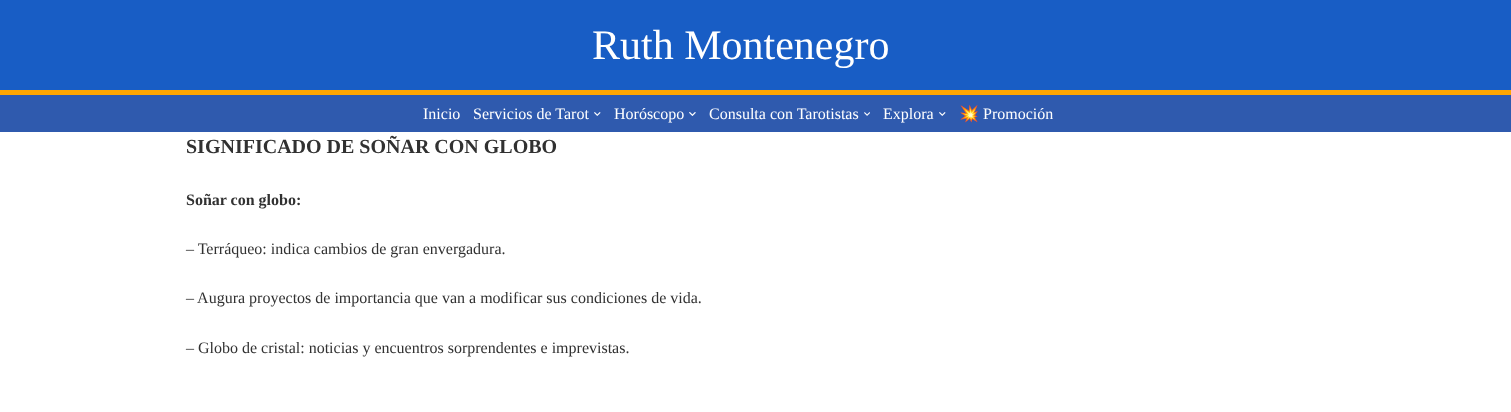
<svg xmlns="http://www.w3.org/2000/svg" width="1511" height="412">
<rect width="100%" height="100%" fill="#fff"/>
<rect width="1511" height="90" fill="#185dc5"/>
<rect y="90" width="1511" height="5" fill="#ffa500"/>
<text x="592" y="59" style="font-family:Liberation Serif;font-size:42px;fill:#fff">Ruth Montenegro</text>
<rect y="95" width="1511" height="37" fill="#2f5aae"/>
<text x="423" y="119" style="font-family:Liberation Serif;font-size:16px;fill:#fff">Inicio</text>
<text x="473" y="119" style="font-family:Liberation Serif;font-size:16px;fill:#fff">Servicios de Tarot</text>
<image x="594" y="112" width="7" height="4" href="media/1.png"/>
<text x="614" y="119" style="font-family:Liberation Serif;font-size:16px;fill:#fff">Horóscopo</text>
<image x="689" y="112" width="7" height="4" href="media/2.png"/>
<text x="709" y="119" style="font-family:Liberation Serif;font-size:16px;fill:#fff">Consulta con Tarotistas</text>
<image x="864" y="112" width="6" height="4" href="media/3.png"/>
<text x="883" y="119" style="font-family:Liberation Serif;font-size:16px;fill:#fff">Explora</text>
<image x="939" y="112" width="7" height="4" href="media/4.png"/>
<text x="959" y="119" style="font-family:Noto Color Emoji;font-size:16px;fill:#fff">💥</text>
<text x="983" y="119" style="font-family:Liberation Serif;font-size:16px;fill:#fff">Promoción</text>
<text x="186" y="153" style="font-family:Liberation Serif;font-size:20px;font-weight:bold;fill:#313131">SIGNIFICADO DE SOÑAR CON GLOBO</text>
<text x="186" y="205" style="font-family:Liberation Serif;font-size:16px;font-weight:bold;fill:#313131">Soñar con globo:</text>
<text x="186" y="254" style="font-family:Liberation Serif;font-size:16px;fill:#313131">– Terráqueo: indica cambios de gran envergadura.</text>
<text x="186" y="303" style="font-family:Liberation Serif;font-size:16px;fill:#313131">– Augura proyectos de importancia que van a modificar sus condiciones de vida.</text>
<text x="186" y="353" style="font-family:Liberation Serif;font-size:16px;fill:#313131">– Globo de cristal: noticias y encuentros sorprendentes e imprevistas.</text>
</svg>
